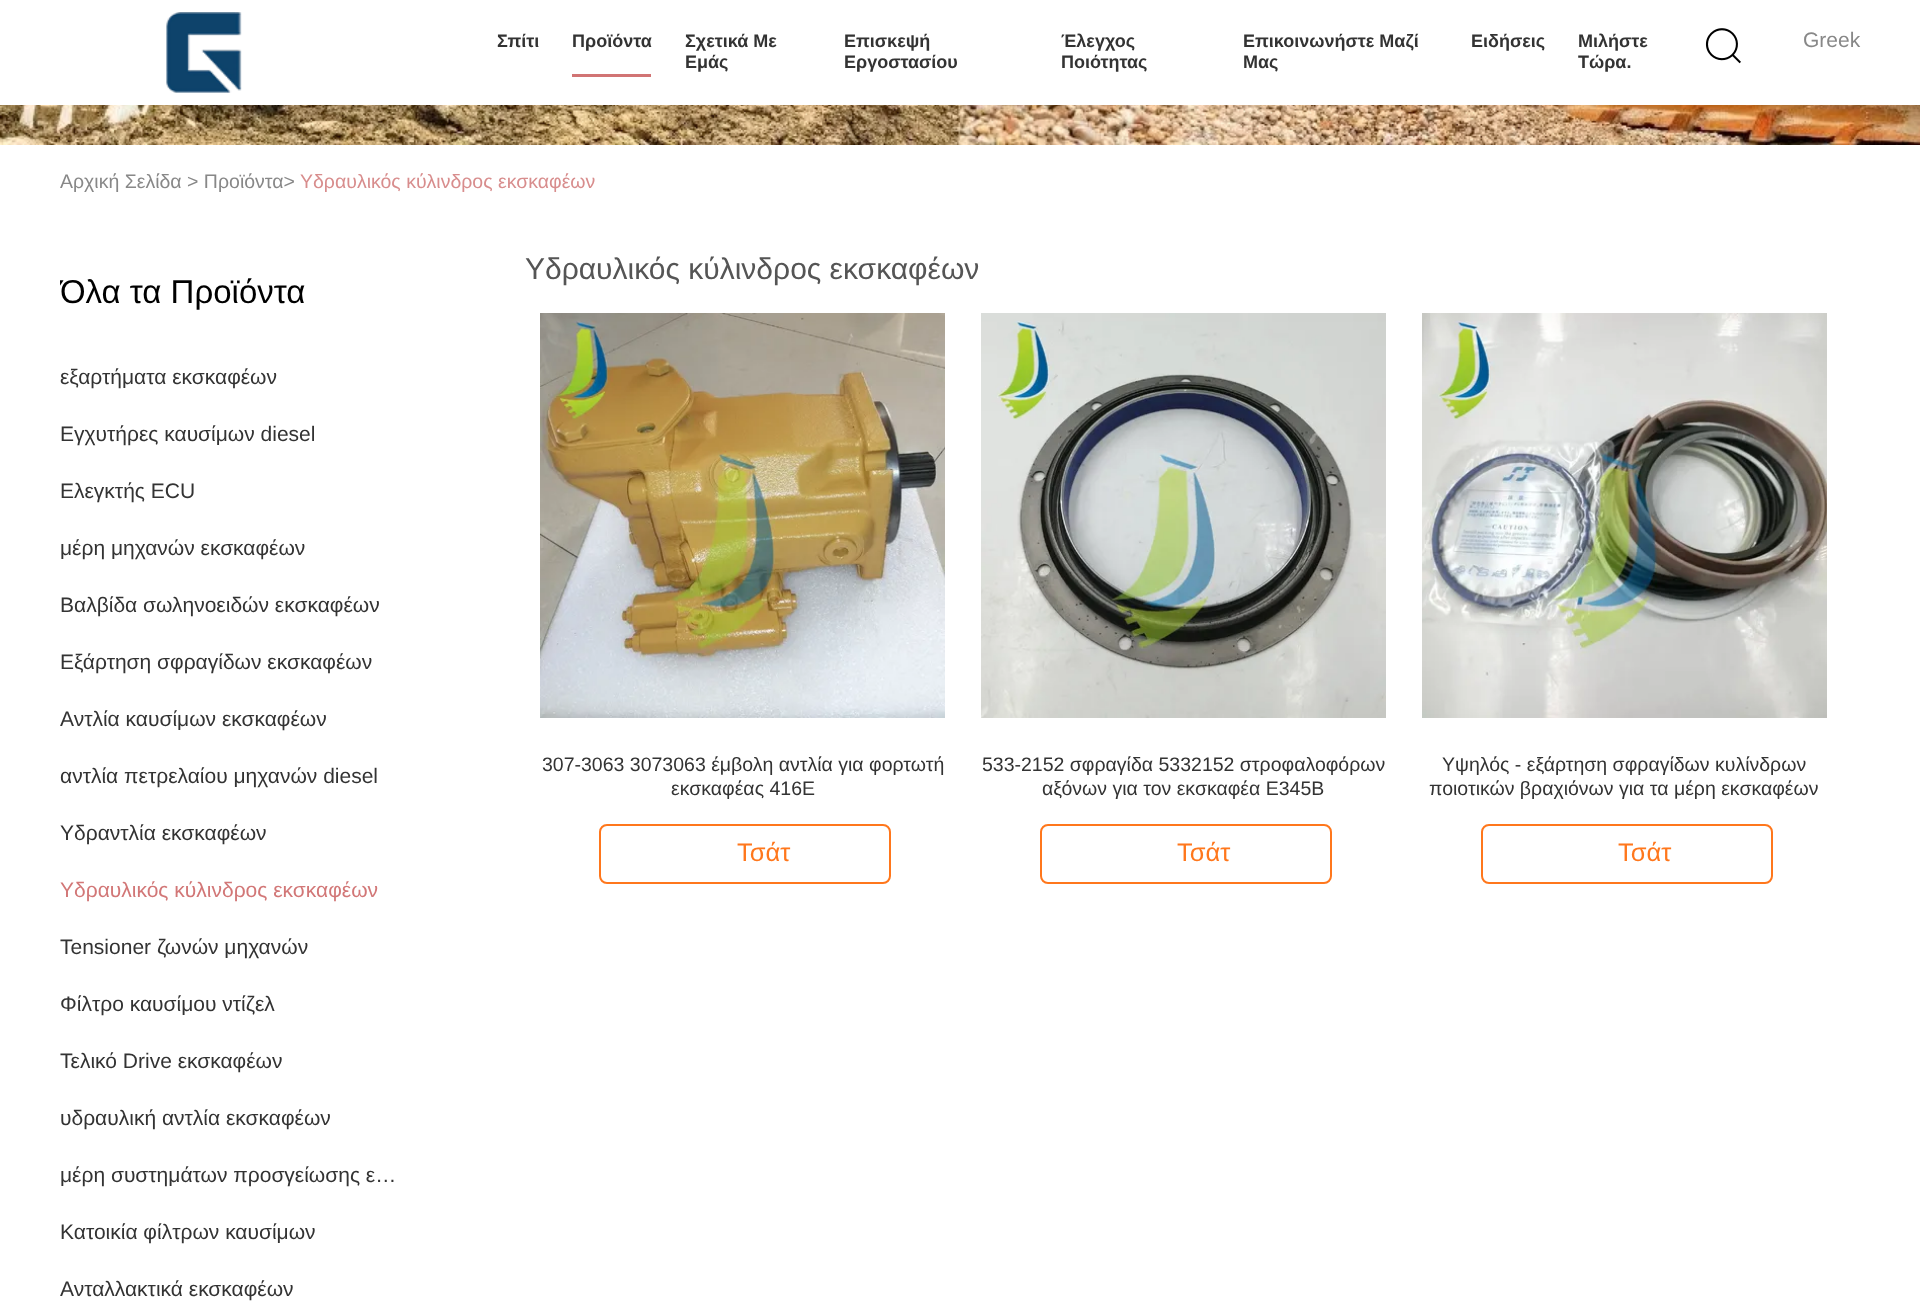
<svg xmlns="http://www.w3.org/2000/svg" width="1920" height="1309">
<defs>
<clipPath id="clip1"><rect x="60" y="251" width="390" height="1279"/></clipPath>
</defs>
<rect width="100%" height="100%" fill="#fff"/>
<image x="166" y="12" width="76" height="81" href="media/1.png"/>
<text x="497" y="47" style="font-family:Liberation Sans;font-size:18px;font-weight:bold;fill:#333">Σπίτι</text>
<rect x="572" y="74" width="79" height="3" fill="#d17474"/>
<text x="572" y="47" style="font-family:Liberation Sans;font-size:18px;font-weight:bold;fill:#333">Προϊόντα</text>
<text x="685" y="47" style="font-family:Liberation Sans;font-size:18px;font-weight:bold;fill:#333">Σχετικά Με</text>
<text x="685" y="68" style="font-family:Liberation Sans;font-size:18px;font-weight:bold;fill:#333">Εμάς</text>
<text x="844" y="47" style="font-family:Liberation Sans;font-size:18px;font-weight:bold;fill:#333">Επισκεψή</text>
<text x="844" y="68" style="font-family:Liberation Sans;font-size:18px;font-weight:bold;fill:#333">Εργοστασίου</text>
<text x="1061" y="47" style="font-family:Liberation Sans;font-size:18px;font-weight:bold;fill:#333">Έλεγχος</text>
<text x="1061" y="68" style="font-family:Liberation Sans;font-size:18px;font-weight:bold;fill:#333">Ποιότητας</text>
<text x="1243" y="47" style="font-family:Liberation Sans;font-size:18px;font-weight:bold;fill:#333">Επικοινωνήστε Μαζί</text>
<text x="1243" y="68" style="font-family:Liberation Sans;font-size:18px;font-weight:bold;fill:#333">Μας</text>
<text x="1471" y="47" style="font-family:Liberation Sans;font-size:18px;font-weight:bold;fill:#333">Ειδήσεις</text>
<text x="1578" y="47" style="font-family:Liberation Sans;font-size:18px;font-weight:bold;fill:#333">Μιλήστε</text>
<text x="1578" y="68" style="font-family:Liberation Sans;font-size:18px;font-weight:bold;fill:#333">Τώρα.</text>
<image x="1705" y="28" width="36" height="36" href="media/2.png"/>
<text x="1803" y="47" style="font-family:Liberation Sans;font-size:21px;fill:#888">Greek</text>
<image x="0" y="105" width="1920" height="40" href="media/3.png"/>
<text x="60" y="188" style="font-family:Liberation Sans;font-size:19.5px;fill:#888">Αρχική Σελίδα &gt; Προϊόντα&gt;</text>
<text x="300" y="188" style="font-family:Liberation Sans;font-size:19.5px;fill:#d88d8d">Υδραυλικός κύλινδρος εκσκαφέων</text>
<g clip-path="url(#clip1)">
<text x="60" y="303" style="font-family:Liberation Sans;font-size:33px;fill:#000">Όλα τα Προϊόντα</text>
</g>
<text x="60" y="384" style="font-family:Liberation Sans;font-size:21px;fill:#333">εξαρτήματα εκσκαφέων</text>
<text x="60" y="441" style="font-family:Liberation Sans;font-size:21px;fill:#333">Εγχυτήρες καυσίμων diesel</text>
<text x="60" y="498" style="font-family:Liberation Sans;font-size:21px;fill:#333">Ελεγκτής ECU</text>
<text x="60" y="555" style="font-family:Liberation Sans;font-size:21px;fill:#333">μέρη μηχανών εκσκαφέων</text>
<text x="60" y="612" style="font-family:Liberation Sans;font-size:21px;fill:#333">Βαλβίδα σωληνοειδών εκσκαφέων</text>
<text x="60" y="669" style="font-family:Liberation Sans;font-size:21px;fill:#333">Εξάρτηση σφραγίδων εκσκαφέων</text>
<text x="60" y="726" style="font-family:Liberation Sans;font-size:21px;fill:#333">Αντλία καυσίμων εκσκαφέων</text>
<text x="60" y="783" style="font-family:Liberation Sans;font-size:21px;fill:#333">αντλία πετρελαίου μηχανών diesel</text>
<text x="60" y="840" style="font-family:Liberation Sans;font-size:21px;fill:#333">Υδραντλία εκσκαφέων</text>
<text x="60" y="897" style="font-family:Liberation Sans;font-size:21px;fill:#d27777">Υδραυλικός κύλινδρος εκσκαφέων</text>
<text x="60" y="954" style="font-family:Liberation Sans;font-size:21px;fill:#333">Tensioner ζωνών μηχανών</text>
<text x="60" y="1011" style="font-family:Liberation Sans;font-size:21px;fill:#333">Φίλτρο καυσίμου ντίζελ</text>
<text x="60" y="1068" style="font-family:Liberation Sans;font-size:21px;fill:#333">Τελικό Drive εκσκαφέων</text>
<text x="60" y="1125" style="font-family:Liberation Sans;font-size:21px;fill:#333">υδραυλική αντλία εκσκαφέων</text>
<text x="60" y="1182" style="font-family:Liberation Sans;font-size:21px;fill:#333">μέρη συστημάτων προσγείωσης ε…</text>
<text x="60" y="1239" style="font-family:Liberation Sans;font-size:21px;fill:#333">Κατοικία φίλτρων καυσίμων</text>
<text x="60" y="1296" style="font-family:Liberation Sans;font-size:21px;fill:#333">Ανταλλακτικά εκσκαφέων</text>
<text x="525" y="279" style="font-family:Liberation Sans;font-size:30px;fill:#555">Υδραυλικός κύλινδρος εκσκαφέων</text>
<image x="540" y="313" width="405" height="405" href="media/4.png"/>
<text x="542" y="771" style="font-family:Liberation Sans;font-size:19.5px;fill:#333">307-3063 3073063 έμβολη αντλία για φορτωτή</text>
<text x="671" y="795" style="font-family:Liberation Sans;font-size:19.5px;fill:#333">εκσκαφέας 416E</text>
<rect x="600" y="825" width="290" height="58" rx="7" fill="none" stroke="#ff771c" stroke-width="2"/>
<text x="737" y="861" style="font-family:Liberation Sans;font-size:25.5px;fill:#ff771c">Τσάτ</text>
<image x="981" y="313" width="405" height="405" href="media/5.png"/>
<text x="982" y="771" style="font-family:Liberation Sans;font-size:19.5px;fill:#333">533-2152 σφραγίδα 5332152 στροφαλοφόρων</text>
<text x="1042" y="795" style="font-family:Liberation Sans;font-size:19.5px;fill:#333">αξόνων για τον εκσκαφέα E345B</text>
<rect x="1041" y="825" width="290" height="58" rx="7" fill="none" stroke="#ff771c" stroke-width="2"/>
<text x="1177" y="861" style="font-family:Liberation Sans;font-size:25.5px;fill:#ff771c">Τσάτ</text>
<image x="1422" y="313" width="405" height="405" href="media/6.png"/>
<text x="1442" y="771" style="font-family:Liberation Sans;font-size:19.5px;fill:#333">Υψηλός - εξάρτηση σφραγίδων κυλίνδρων</text>
<text x="1429" y="795" style="font-family:Liberation Sans;font-size:19.5px;fill:#333">ποιοτικών βραχιόνων για τα μέρη εκσκαφέων</text>
<rect x="1482" y="825" width="290" height="58" rx="7" fill="none" stroke="#ff771c" stroke-width="2"/>
<text x="1618" y="861" style="font-family:Liberation Sans;font-size:25.5px;fill:#ff771c">Τσάτ</text>
</svg>
